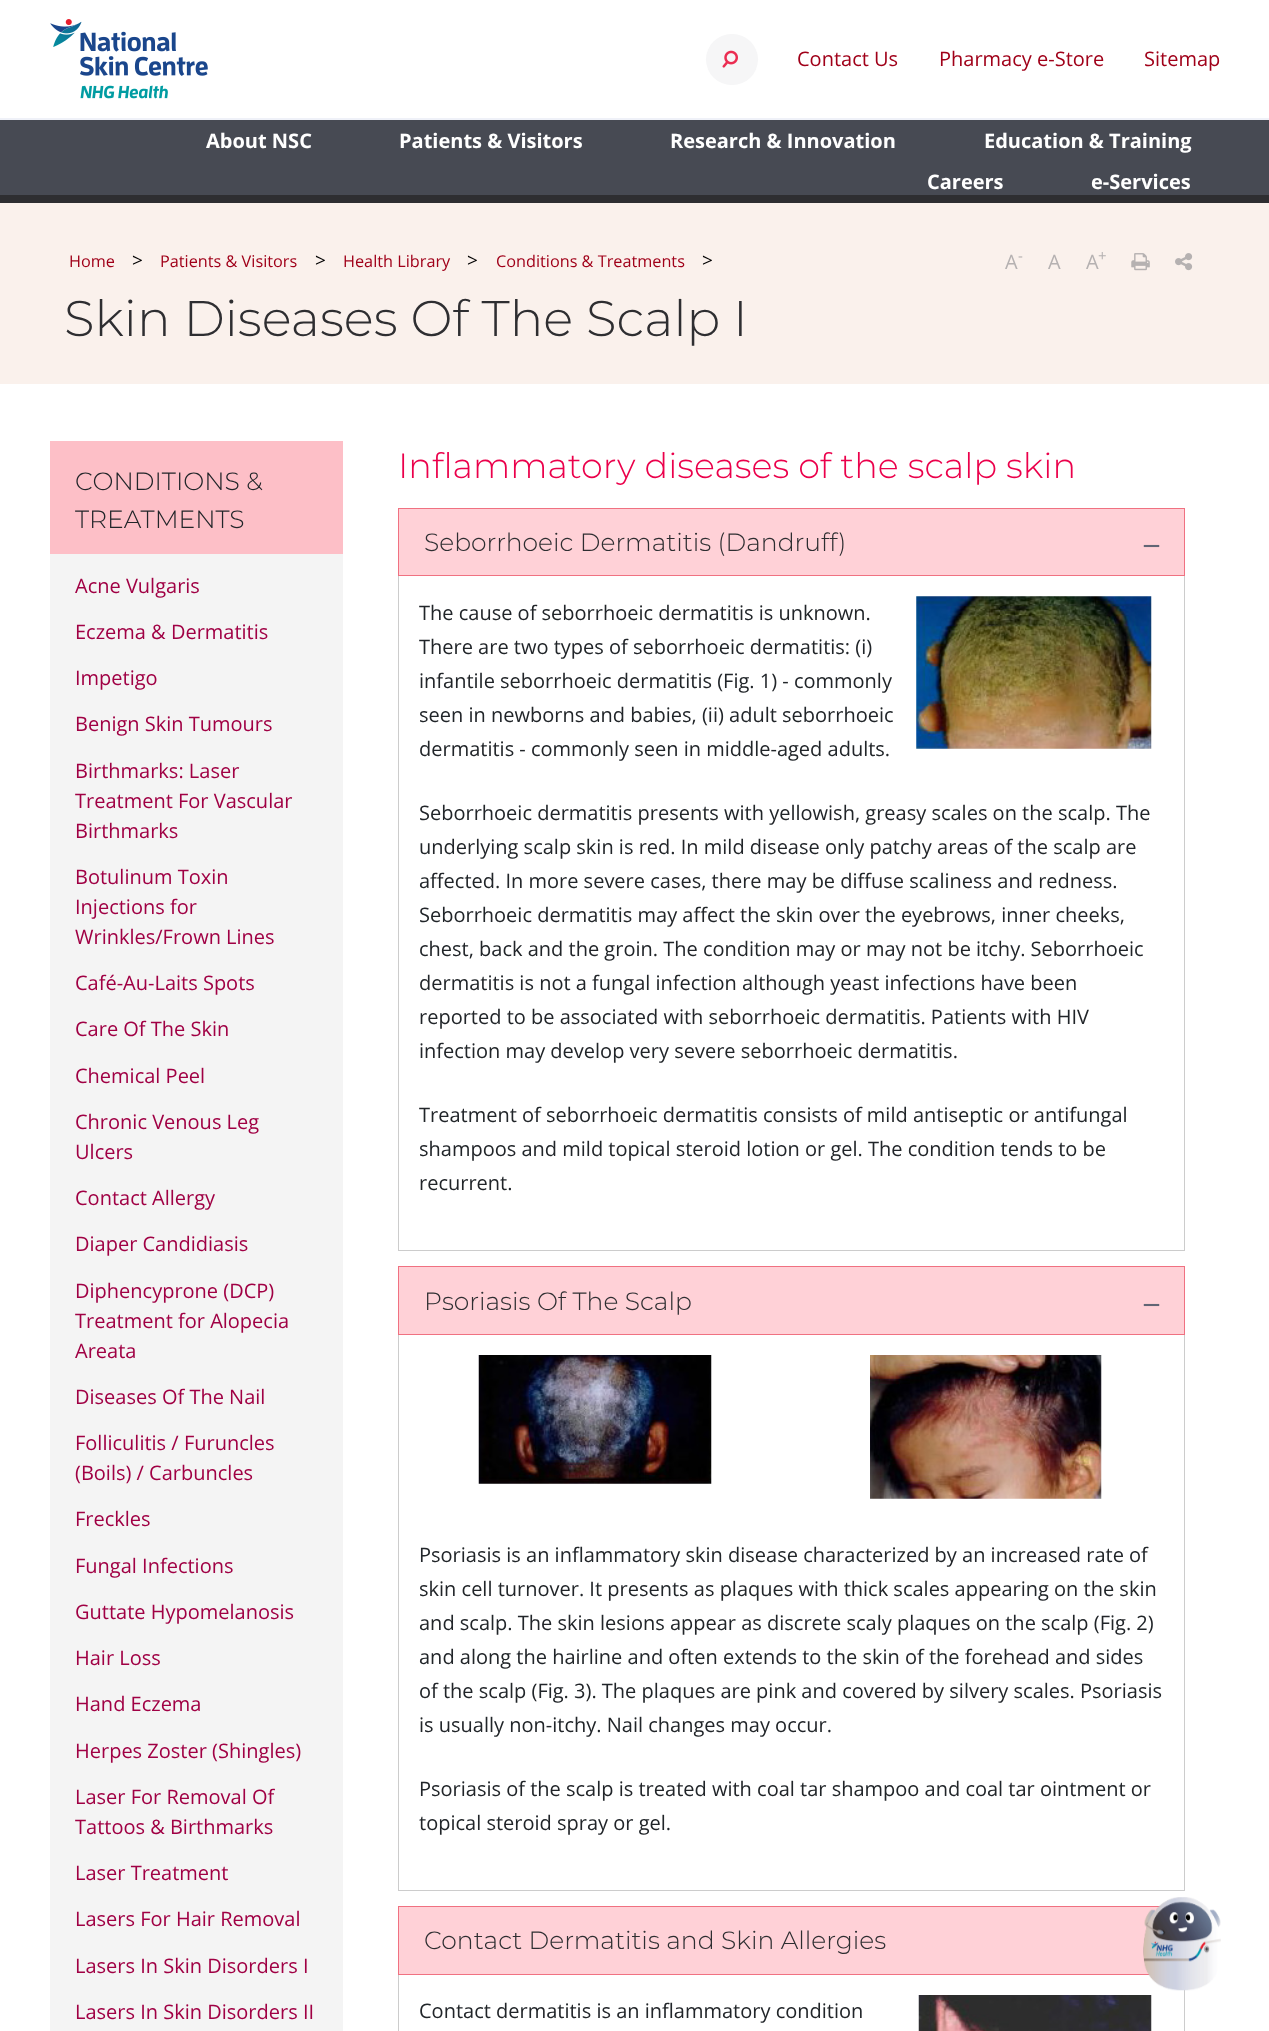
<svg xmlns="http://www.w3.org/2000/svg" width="1269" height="2031">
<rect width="100%" height="100%" fill="#fff"/>
<rect y="118" width="1269" height="2" fill="#eff1f8"/>
<image x="50" y="19" width="158" height="80" href="media/1.png"/>
<rect x="706" y="34" width="52" height="51" rx="25.5" fill="#f6f6f7"/>
<image x="722" y="50" width="16" height="18" href="media/2.png"/>
<text x="797" y="66" style="font-family:Open Sans;font-size:20px;fill:#a00019">Contact Us</text>
<text x="939" y="66" style="font-family:Open Sans;font-size:20px;fill:#a00019">Pharmacy e-Store</text>
<text x="1144" y="66" style="font-family:Open Sans;font-size:20px;fill:#a00019">Sitemap</text>
<rect y="120" width="1269" height="75" fill="#474a53"/>
<rect y="195" width="1269" height="8" fill="#2e2e31"/>
<text x="206" y="148" style="font-family:Open Sans;font-size:20px;font-weight:bold;fill:#fff">About NSC</text>
<text x="399" y="148" style="font-family:Open Sans;font-size:20px;font-weight:bold;fill:#fff">Patients &amp; Visitors</text>
<text x="670" y="148" style="font-family:Open Sans;font-size:20px;font-weight:bold;fill:#fff">Research &amp; Innovation</text>
<text x="984" y="148" style="font-family:Open Sans;font-size:20px;font-weight:bold;fill:#fff">Education &amp; Training</text>
<text x="927" y="189" style="font-family:Open Sans;font-size:20px;font-weight:bold;fill:#fff">Careers</text>
<text x="1091" y="189" style="font-family:Open Sans;font-size:20px;font-weight:bold;fill:#fff">e-Services</text>
<rect y="203" width="1269" height="181" fill="#faf1ec"/>
<text x="69" y="267" style="font-family:Open Sans;font-size:16.25px;fill:#a00019">Home</text>
<text x="132" y="267" style="font-family:Open Sans;font-size:19px;fill:#000">&gt;</text>
<text x="160" y="267" style="font-family:Open Sans;font-size:16.25px;fill:#a00019">Patients &amp; Visitors</text>
<text x="315" y="267" style="font-family:Open Sans;font-size:19px;fill:#000">&gt;</text>
<text x="343" y="267" style="font-family:Open Sans;font-size:16.25px;fill:#a00019">Health Library</text>
<text x="467" y="267" style="font-family:Open Sans;font-size:19px;fill:#000">&gt;</text>
<text x="496" y="267" style="font-family:Open Sans;font-size:16.25px;fill:#a00019">Conditions &amp; Treatments</text>
<text x="702" y="267" style="font-family:Open Sans;font-size:19px;fill:#000">&gt;</text>
<text x="1005" y="269" style="font-family:Open Sans;font-size:20px;fill:#b5b1b1">A</text>
<text x="1018" y="261" style="font-family:Open Sans;font-size:15px;fill:#b5b1b1">-</text>
<text x="1048" y="269" style="font-family:Open Sans;font-size:20px;fill:#b5b1b1">A</text>
<text x="1086" y="269" style="font-family:Open Sans;font-size:20px;fill:#b5b1b1">A</text>
<text x="1098" y="261" style="font-family:Open Sans;font-size:15px;fill:#b5b1b1">+</text>
<image x="1131" y="253" width="19" height="18" href="media/3.png"/>
<image x="1175" y="253" width="18" height="18" href="media/4.png"/>
<text x="64" y="336" style="font-family:Montserrat;font-size:50px;font-weight:300;fill:#2e2e31">Skin Diseases Of The Scalp I</text>
<rect x="50" y="441" width="293" height="113" fill="#fdbfc7"/>
<text x="75" y="490" style="font-family:Montserrat;font-size:25px;font-weight:300;fill:#212529">CONDITIONS &amp;</text>
<text x="75" y="528" style="font-family:Montserrat;font-size:25px;font-weight:300;fill:#212529">TREATMENTS</text>
<rect x="50" y="554" width="293" height="1477" fill="#f4f4f4"/>
<text x="75" y="593" style="font-family:Open Sans;font-size:20px;fill:#a00044">Acne Vulgaris</text>
<text x="75" y="639" style="font-family:Open Sans;font-size:20px;fill:#a00044">Eczema &amp; Dermatitis</text>
<text x="75" y="685" style="font-family:Open Sans;font-size:20px;fill:#a00044">Impetigo</text>
<text x="75" y="731" style="font-family:Open Sans;font-size:20px;fill:#a00044">Benign Skin Tumours</text>
<text x="75" y="778" style="font-family:Open Sans;font-size:20px;fill:#a00044">Birthmarks: Laser</text>
<text x="75" y="808" style="font-family:Open Sans;font-size:20px;fill:#a00044">Treatment For Vascular</text>
<text x="75" y="838" style="font-family:Open Sans;font-size:20px;fill:#a00044">Birthmarks</text>
<text x="75" y="884" style="font-family:Open Sans;font-size:20px;fill:#a00044">Botulinum Toxin</text>
<text x="75" y="914" style="font-family:Open Sans;font-size:20px;fill:#a00044">Injections for</text>
<text x="75" y="944" style="font-family:Open Sans;font-size:20px;fill:#a00044">Wrinkles/Frown Lines</text>
<text x="75" y="990" style="font-family:Open Sans;font-size:20px;fill:#a00044">Café-Au-Laits Spots</text>
<text x="75" y="1036" style="font-family:Open Sans;font-size:20px;fill:#a00044">Care Of The Skin</text>
<text x="75" y="1083" style="font-family:Open Sans;font-size:20px;fill:#a00044">Chemical Peel</text>
<text x="75" y="1129" style="font-family:Open Sans;font-size:20px;fill:#a00044">Chronic Venous Leg</text>
<text x="75" y="1159" style="font-family:Open Sans;font-size:20px;fill:#a00044">Ulcers</text>
<text x="75" y="1205" style="font-family:Open Sans;font-size:20px;fill:#a00044">Contact Allergy</text>
<text x="75" y="1251" style="font-family:Open Sans;font-size:20px;fill:#a00044">Diaper Candidiasis</text>
<text x="75" y="1298" style="font-family:Open Sans;font-size:20px;fill:#a00044">Diphencyprone (DCP)</text>
<text x="75" y="1328" style="font-family:Open Sans;font-size:20px;fill:#a00044">Treatment for Alopecia</text>
<text x="75" y="1358" style="font-family:Open Sans;font-size:20px;fill:#a00044">Areata</text>
<text x="75" y="1404" style="font-family:Open Sans;font-size:20px;fill:#a00044">Diseases Of The Nail</text>
<text x="75" y="1450" style="font-family:Open Sans;font-size:20px;fill:#a00044">Folliculitis / Furuncles</text>
<text x="75" y="1480" style="font-family:Open Sans;font-size:20px;fill:#a00044">(Boils) / Carbuncles</text>
<text x="75" y="1526" style="font-family:Open Sans;font-size:20px;fill:#a00044">Freckles</text>
<text x="75" y="1573" style="font-family:Open Sans;font-size:20px;fill:#a00044">Fungal Infections</text>
<text x="75" y="1619" style="font-family:Open Sans;font-size:20px;fill:#a00044">Guttate Hypomelanosis</text>
<text x="75" y="1665" style="font-family:Open Sans;font-size:20px;fill:#a00044">Hair Loss</text>
<text x="75" y="1711" style="font-family:Open Sans;font-size:20px;fill:#a00044">Hand Eczema</text>
<text x="75" y="1758" style="font-family:Open Sans;font-size:20px;fill:#a00044">Herpes Zoster (Shingles)</text>
<text x="75" y="1804" style="font-family:Open Sans;font-size:20px;fill:#a00044">Laser For Removal Of</text>
<text x="75" y="1834" style="font-family:Open Sans;font-size:20px;fill:#a00044">Tattoos &amp; Birthmarks</text>
<text x="75" y="1880" style="font-family:Open Sans;font-size:20px;fill:#a00044">Laser Treatment</text>
<text x="75" y="1926" style="font-family:Open Sans;font-size:20px;fill:#a00044">Lasers For Hair Removal</text>
<text x="75" y="1973" style="font-family:Open Sans;font-size:20px;fill:#a00044">Lasers In Skin Disorders I</text>
<text x="75" y="2019" style="font-family:Open Sans;font-size:20px;fill:#a00044">Lasers In Skin Disorders II</text>
<text x="398" y="478" style="font-family:Montserrat;font-size:35px;font-weight:300;fill:#eb004b">Inflammatory diseases of the scalp skin</text>
<rect x="398.5" y="508.5" width="786" height="67" fill="#ffd1d7" stroke="#f07181"/>
<text x="424" y="551" style="font-family:Montserrat;font-size:25px;font-weight:300;fill:#2e2e31">Seborrhoeic Dermatitis (Dandruff)</text>
<text x="1144" y="553" style="font-family:Liberation Serif;font-size:30px;font-weight:bold;fill:#616575">–</text>
<rect x="1184" y="576" width="1" height="675" fill="#ccc"/>
<rect x="398" y="1250" width="787" height="1" fill="#ccc"/>
<rect x="398" y="576" width="1" height="675" fill="#ccc"/>
<text x="419" y="620" style="font-family:Open Sans;font-size:20px;fill:#212529">The cause of seborrhoeic dermatitis is unknown.</text>
<text x="419" y="654" style="font-family:Open Sans;font-size:20px;fill:#212529">There are two types of seborrhoeic dermatitis: (i)</text>
<text x="419" y="688" style="font-family:Open Sans;font-size:20px;fill:#212529">infantile seborrhoeic dermatitis (Fig. 1) - commonly</text>
<text x="419" y="722" style="font-family:Open Sans;font-size:20px;fill:#212529">seen in newborns and babies, (ii) adult seborrhoeic</text>
<text x="419" y="756" style="font-family:Open Sans;font-size:20px;fill:#212529">dermatitis - commonly seen in middle-aged adults.</text>
<image x="916" y="596" width="236" height="153" href="media/5.png"/>
<text x="419" y="820" style="font-family:Open Sans;font-size:20px;fill:#212529">Seborrhoeic dermatitis presents with yellowish, greasy scales on the scalp. The</text>
<text x="419" y="854" style="font-family:Open Sans;font-size:20px;fill:#212529">underlying scalp skin is red. In mild disease only patchy areas of the scalp are</text>
<text x="419" y="888" style="font-family:Open Sans;font-size:20px;fill:#212529">affected. In more severe cases, there may be diffuse scaliness and redness.</text>
<text x="419" y="922" style="font-family:Open Sans;font-size:20px;fill:#212529">Seborrhoeic dermatitis may affect the skin over the eyebrows, inner cheeks,</text>
<text x="419" y="956" style="font-family:Open Sans;font-size:20px;fill:#212529">chest, back and the groin. The condition may or may not be itchy. Seborrhoeic</text>
<text x="419" y="990" style="font-family:Open Sans;font-size:20px;fill:#212529">dermatitis is not a fungal infection although yeast infections have been</text>
<text x="419" y="1024" style="font-family:Open Sans;font-size:20px;fill:#212529">reported to be associated with seborrhoeic dermatitis. Patients with HIV</text>
<text x="419" y="1058" style="font-family:Open Sans;font-size:20px;fill:#212529">infection may develop very severe seborrhoeic dermatitis.</text>
<text x="419" y="1122" style="font-family:Open Sans;font-size:20px;fill:#212529">Treatment of seborrhoeic dermatitis consists of mild antiseptic or antifungal</text>
<text x="419" y="1156" style="font-family:Open Sans;font-size:20px;fill:#212529">shampoos and mild topical steroid lotion or gel. The condition tends to be</text>
<text x="419" y="1190" style="font-family:Open Sans;font-size:20px;fill:#212529">recurrent.</text>
<rect x="398.5" y="1266.5" width="786" height="68" fill="#ffd1d7" stroke="#f07181"/>
<text x="424" y="1310" style="font-family:Montserrat;font-size:25px;font-weight:300;fill:#2e2e31">Psoriasis Of The Scalp</text>
<text x="1144" y="1312" style="font-family:Liberation Serif;font-size:30px;font-weight:bold;fill:#616575">–</text>
<rect x="1184" y="1335" width="1" height="556" fill="#ccc"/>
<rect x="398" y="1890" width="787" height="1" fill="#ccc"/>
<rect x="398" y="1335" width="1" height="556" fill="#ccc"/>
<image x="478" y="1355" width="234" height="129" href="media/6.png"/>
<image x="870" y="1355" width="232" height="144" href="media/7.png"/>
<text x="419" y="1562" style="font-family:Open Sans;font-size:20px;fill:#212529">Psoriasis is an inflammatory skin disease characterized by an increased rate of</text>
<text x="419" y="1596" style="font-family:Open Sans;font-size:20px;fill:#212529">skin cell turnover. It presents as plaques with thick scales appearing on the skin</text>
<text x="419" y="1630" style="font-family:Open Sans;font-size:20px;fill:#212529">and scalp. The skin lesions appear as discrete scaly plaques on the scalp (Fig. 2)</text>
<text x="419" y="1664" style="font-family:Open Sans;font-size:20px;fill:#212529">and along the hairline and often extends to the skin of the forehead and sides</text>
<text x="419" y="1698" style="font-family:Open Sans;font-size:20px;fill:#212529">of the scalp (Fig. 3). The plaques are pink and covered by silvery scales. Psoriasis</text>
<text x="419" y="1732" style="font-family:Open Sans;font-size:20px;fill:#212529">is usually non-itchy. Nail changes may occur.</text>
<text x="419" y="1796" style="font-family:Open Sans;font-size:20px;fill:#212529">Psoriasis of the scalp is treated with coal tar shampoo and coal tar ointment or</text>
<text x="419" y="1830" style="font-family:Open Sans;font-size:20px;fill:#212529">topical steroid spray or gel.</text>
<rect x="399" y="1907" width="761" height="67" fill="#ffd1d7"/>
<rect x="398.5" y="1906.5" width="786" height="68" fill="none" stroke="#f07181"/>
<text x="424" y="1949" style="font-family:Montserrat;font-size:25px;font-weight:300;fill:#2e2e31">Contact Dermatitis and Skin Allergies</text>
<rect x="1184" y="1989" width="1" height="42" fill="#ccc"/>
<rect x="398" y="1975" width="1" height="56" fill="#ccc"/>
<text x="419" y="2018" style="font-family:Open Sans;font-size:20px;fill:#212529">Contact dermatitis is an inflammatory condition</text>
<image x="918" y="1995" width="234" height="36" href="media/8.png"/>
<image x="1143" y="1897" width="78" height="94" href="media/9.png"/>
</svg>
